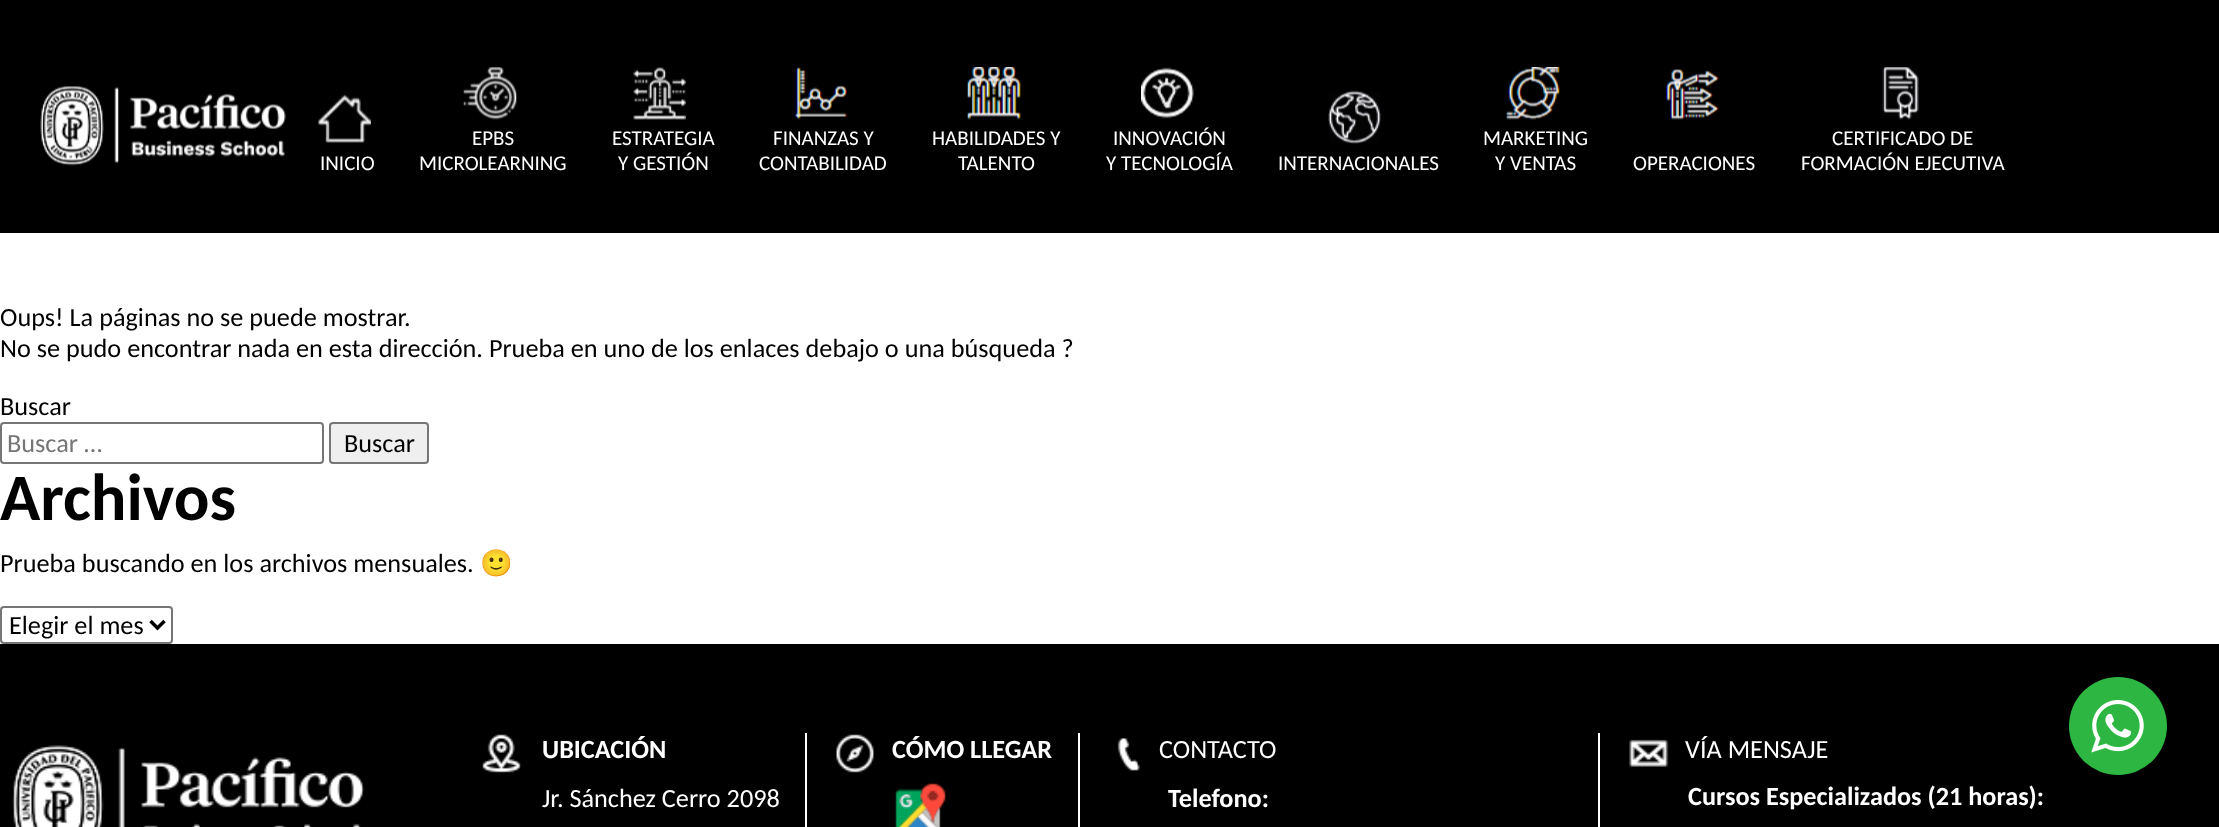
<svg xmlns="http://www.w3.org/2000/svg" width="2219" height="827">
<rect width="100%" height="100%" fill="#fff"/>
<rect width="2219" height="233" fill="#000"/>
<image x="40" y="86" width="246" height="80" href="media/1.png"/>
<image x="318" y="94" width="53" height="49" href="media/2.png"/>
<text x="320" y="170" style="font-family:Carlito;font-size:21px;fill:#fff">INICIO</text>
<image x="463" y="67" width="54" height="53" href="media/3.png"/>
<text x="472" y="145" style="font-family:Carlito;font-size:21px;fill:#fff">EPBS</text>
<text x="419" y="170" style="font-family:Carlito;font-size:21px;fill:#fff">MICROLEARNING</text>
<image x="633" y="67" width="53" height="53" href="media/4.png"/>
<text x="612" y="145" style="font-family:Carlito;font-size:21px;fill:#fff">ESTRATEGIA</text>
<text x="618" y="170" style="font-family:Carlito;font-size:21px;fill:#fff">Y GESTIÓN</text>
<image x="794" y="67" width="53" height="53" href="media/5.png"/>
<text x="773" y="145" style="font-family:Carlito;font-size:21px;fill:#fff">FINANZAS Y</text>
<text x="759" y="170" style="font-family:Carlito;font-size:21px;fill:#fff">CONTABILIDAD</text>
<image x="967" y="67" width="54" height="53" href="media/6.png"/>
<text x="932" y="145" style="font-family:Carlito;font-size:21px;fill:#fff">HABILIDADES Y</text>
<text x="958" y="170" style="font-family:Carlito;font-size:21px;fill:#fff">TALENTO</text>
<image x="1141" y="67" width="53" height="52" href="media/7.png"/>
<text x="1113" y="145" style="font-family:Carlito;font-size:21px;fill:#fff">INNOVACIÓN</text>
<text x="1106" y="170" style="font-family:Carlito;font-size:21px;fill:#fff">Y TECNOLOGÍA</text>
<image x="1328" y="90" width="53" height="54" href="media/8.png"/>
<text x="1278" y="170" style="font-family:Carlito;font-size:21px;fill:#fff">INTERNACIONALES</text>
<image x="1506" y="67" width="54" height="53" href="media/9.png"/>
<text x="1483" y="145" style="font-family:Carlito;font-size:21px;fill:#fff">MARKETING</text>
<text x="1495" y="170" style="font-family:Carlito;font-size:21px;fill:#fff">Y VENTAS</text>
<image x="1666" y="69" width="53" height="51" href="media/10.png"/>
<text x="1633" y="170" style="font-family:Carlito;font-size:21px;fill:#fff">OPERACIONES</text>
<image x="1882" y="67" width="37" height="53" href="media/11.png"/>
<text x="1832" y="145" style="font-family:Carlito;font-size:21px;fill:#fff">CERTIFICADO DE</text>
<text x="1801" y="170" style="font-family:Carlito;font-size:21px;fill:#fff">FORMACIÓN EJECUTIVA</text>
<text x="0" y="326" style="font-family:Carlito;font-size:26.25px;fill:#000">Oups! La páginas no se puede mostrar.</text>
<text x="0" y="357" style="font-family:Carlito;font-size:26.25px;fill:#000">No se pudo encontrar nada en esta dirección. Prueba en uno de los enlaces debajo o una búsqueda ?</text>
<text x="0" y="415" style="font-family:Carlito;font-size:26.25px;fill:#000">Buscar</text>
<rect x="1" y="423" width="322" height="40" rx="3" fill="none" stroke="#767676" stroke-width="2"/>
<text x="7" y="452" style="font-family:Carlito;font-size:26.25px;fill:#757575">Buscar …</text>
<rect x="330" y="423" width="98" height="40" rx="3" fill="#efefef" stroke="#767676" stroke-width="2"/>
<text x="344" y="452" style="font-family:Carlito;font-size:26.25px;fill:#000">Buscar</text>
<text x="0" y="520" style="font-family:Carlito;font-size:66.5px;font-weight:bold;fill:#000">Archivos</text>
<text x="0" y="572" style="font-family:Carlito;font-size:26.25px;fill:#000">Prueba buscando en los archivos mensuales.</text>
<text x="480" y="572" style="font-family:Noto Color Emoji;font-size:26.25px;fill:#000">🙂</text>
<rect x="1" y="607" width="171" height="36" rx="3" fill="none" stroke="#767676" stroke-width="2"/>
<path d="M150.5 621l7 7l7-7" fill="none" stroke="#000" stroke-width="3.5"/>
<text x="9" y="634" style="font-family:Carlito;font-size:26.25px;fill:#000">Elegir el mes</text>
<rect y="644" width="2219" height="183" fill="#000"/>
<image x="12" y="745" width="353" height="82" href="media/12.png"/>
<rect x="805" y="733" width="2" height="94" fill="#fff"/>
<image x="482" y="734" width="39" height="39" href="media/13.png"/>
<text x="542" y="758" style="font-family:Carlito;font-size:26.25px;font-weight:bold;fill:#fff">UBICACIÓN</text>
<text x="542" y="807" style="font-family:Carlito;font-size:26.25px;fill:#fff">Jr. Sánchez Cerro 2098</text>
<rect x="1078" y="733" width="2" height="94" fill="#fff"/>
<image x="836" y="734" width="38" height="39" href="media/14.png"/>
<text x="892" y="758" style="font-family:Carlito;font-size:26.25px;font-weight:bold;fill:#fff">CÓMO LLEGAR</text>
<image x="895" y="783" width="51" height="44" href="media/15.png"/>
<rect x="1598" y="733" width="2" height="94" fill="#fff"/>
<image x="1117" y="738" width="23" height="33" href="media/16.png"/>
<text x="1159" y="758" style="font-family:Carlito;font-size:26.25px;fill:#fff">CONTACTO</text>
<text x="1168" y="807" style="font-family:Carlito;font-size:26.25px;font-weight:bold;fill:#fff">Telefono:</text>
<image x="1629" y="739" width="40" height="28" href="media/17.png"/>
<text x="1685" y="758" style="font-family:Carlito;font-size:26.25px;fill:#fff">VÍA MENSAJE</text>
<text x="1688" y="805" style="font-family:Carlito;font-size:26.25px;font-weight:bold;fill:#fff">Cursos Especializados (21 horas):</text>
<circle cx="2118" cy="726" r="49" fill="#2db742"/>
<image x="2091" y="700" width="53" height="53" href="media/18.png"/>
</svg>
